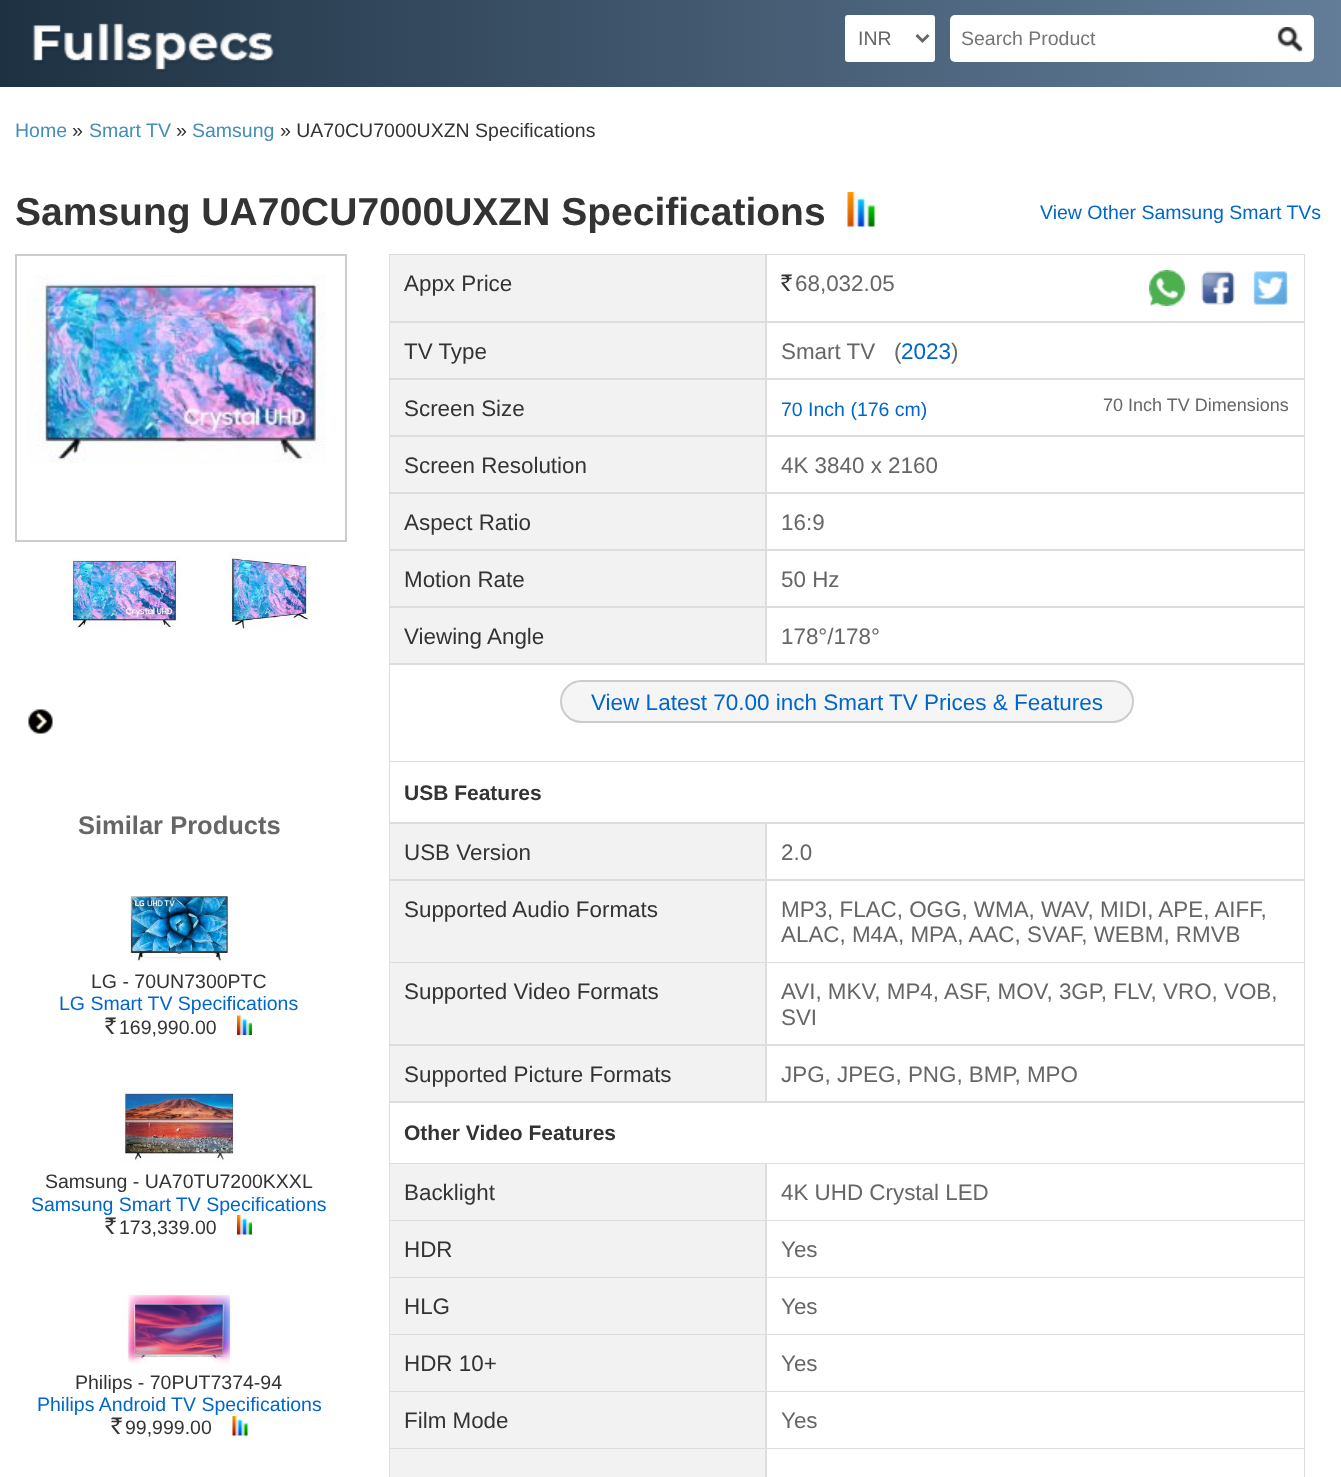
<svg xmlns="http://www.w3.org/2000/svg" width="1341" height="1477">
<defs>
<linearGradient id="g1" gradientUnits="userSpaceOnUse" x1="0" y1="44" x2="1341" y2="43"><stop offset="0" stop-color="#1e3142"/><stop offset="1" stop-color="#637d99"/></linearGradient>
</defs>
<rect width="100%" height="100%" fill="#fff"/>
<rect width="1341" height="87" fill="url(#g1)"/>
<image x="32" y="23" width="242" height="49" href="media/1.png"/>
<rect x="845" y="15" width="90" height="47" rx="3" fill="#fff"/>
<path d="M916.5 35l6 6l6-6" fill="none" stroke="#666" stroke-width="3"/>
<text x="858" y="45" style="font-family:Liberation Sans;font-size:19.5px;fill:#666">INR</text>
<rect x="950" y="15" width="364" height="47" rx="5" fill="#fff"/>
<text x="961" y="45" style="font-family:Liberation Sans;font-size:19.5px;fill:#757575">Search Product</text>
<image x="1277" y="27" width="26" height="25" href="media/2.png"/>
<text x="15" y="137" style="font-family:Liberation Sans;font-size:19.5px;fill:#438eb9">Home</text>
<text x="72" y="137" style="font-family:Liberation Sans;font-size:19.5px;fill:#333">»</text>
<text x="89" y="137" style="font-family:Liberation Sans;font-size:19.5px;fill:#438eb9">Smart TV</text>
<text x="176" y="137" style="font-family:Liberation Sans;font-size:19.5px;fill:#333">»</text>
<text x="192" y="137" style="font-family:Liberation Sans;font-size:19.5px;fill:#438eb9">Samsung</text>
<text x="280" y="137" style="font-family:Liberation Sans;font-size:19.5px;fill:#333">» UA70CU7000UXZN Specifications</text>
<text x="15" y="225" style="font-family:Liberation Sans;font-size:39px;font-weight:bold;fill:#333">Samsung UA70CU7000UXZN Specifications</text>
<image x="847" y="192" width="28" height="35" href="media/3.png"/>
<text x="1040" y="219" style="font-family:Liberation Sans;font-size:19.5px;fill:#06c">View Other Samsung Smart TVs</text>
<rect x="16" y="255" width="330" height="286" fill="none" stroke="#ccc" stroke-width="2"/>
<image x="27" y="275" width="299" height="188" href="media/4.png"/>
<image x="66" y="558" width="114" height="71" href="media/5.png"/>
<image x="229" y="552" width="80" height="77" href="media/6.png"/>
<image x="28" y="709" width="25" height="25" href="media/7.png"/>
<text x="78" y="834" style="font-family:Liberation Sans;font-size:25.5px;font-weight:bold;fill:#666">Similar Products</text>
<image x="129" y="895" width="105" height="68" href="media/8.png"/>
<text x="91" y="988" style="font-family:Liberation Sans;font-size:19.5px;fill:#333">LG - 70UN7300PTC</text>
<text x="59" y="1010" style="font-family:Liberation Sans;font-size:19.5px;fill:#06c">LG Smart TV Specifications</text>
<text x="105" y="1034" style="font-family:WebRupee;font-size:22.5px;fill:#333">Rs.</text>
<text x="119" y="1034" style="font-family:Liberation Sans;font-size:19.5px;fill:#333">169,990.00</text>
<image x="237" y="1015" width="15" height="20" href="media/9.png"/>
<image x="120" y="1087" width="114" height="76" href="media/10.png"/>
<text x="45" y="1188" style="font-family:Liberation Sans;font-size:19.5px;fill:#333">Samsung - UA70TU7200KXXL</text>
<text x="31" y="1211" style="font-family:Liberation Sans;font-size:19.5px;fill:#06c">Samsung Smart TV Specifications</text>
<text x="105" y="1234" style="font-family:WebRupee;font-size:22.5px;fill:#333">Rs.</text>
<text x="119" y="1234" style="font-family:Liberation Sans;font-size:19.5px;fill:#333">173,339.00</text>
<image x="237" y="1215" width="15" height="20" href="media/11.png"/>
<image x="120" y="1289" width="113" height="75" href="media/12.png"/>
<text x="75" y="1389" style="font-family:Liberation Sans;font-size:19.5px;fill:#333">Philips - 70PUT7374-94</text>
<text x="37" y="1411" style="font-family:Liberation Sans;font-size:19.5px;fill:#06c">Philips Android TV Specifications</text>
<text x="111" y="1434" style="font-family:WebRupee;font-size:22.5px;fill:#333">Rs.</text>
<text x="125" y="1434" style="font-family:Liberation Sans;font-size:19.5px;fill:#333">99,999.00</text>
<image x="232" y="1416" width="16" height="20" href="media/13.png"/>
<rect x="389" y="254" width="916" height="1223" fill="#ddd"/>
<rect x="390" y="255" width="375" height="66" fill="#f2f2f2"/>
<text x="404" y="291" style="font-family:Liberation Sans;font-size:22.4px;fill:#333">Appx Price</text>
<rect x="767" y="255" width="537" height="66" fill="#fff"/>
<text x="781" y="291" style="font-family:WebRupee;font-size:22.5px;fill:#333">Rs.</text>
<text x="795" y="291" style="font-family:Liberation Sans;font-size:22.4px;fill:#666">68,032.05</text>
<image x="1149" y="270" width="36" height="36" href="media/14.png"/>
<image x="1201" y="271" width="34" height="34" href="media/15.png"/>
<image x="1253" y="271" width="35" height="34" href="media/16.png"/>
<rect x="390" y="323" width="375" height="55" fill="#f2f2f2"/>
<text x="404" y="359" style="font-family:Liberation Sans;font-size:22.4px;fill:#333">TV Type</text>
<rect x="767" y="323" width="537" height="55" fill="#fff"/>
<text x="781" y="359" style="font-family:Liberation Sans;font-size:22.4px;fill:#666">Smart TV</text>
<text x="894" y="359" style="font-family:Liberation Sans;font-size:22.4px;fill:#666">(</text>
<text x="901" y="359" style="font-family:Liberation Sans;font-size:22.5px;fill:#06c">2023</text>
<text x="951" y="359" style="font-family:Liberation Sans;font-size:22.4px;fill:#666">)</text>
<rect x="390" y="380" width="375" height="55" fill="#f2f2f2"/>
<text x="404" y="416" style="font-family:Liberation Sans;font-size:22.4px;fill:#333">Screen Size</text>
<rect x="767" y="380" width="537" height="55" fill="#fff"/>
<text x="781" y="416" style="font-family:Liberation Sans;font-size:19.5px;fill:#06c">70 Inch (176 cm)</text>
<text x="1103" y="411" style="font-family:Liberation Sans;font-size:18px;fill:#666">70 Inch TV Dimensions</text>
<rect x="390" y="437" width="375" height="55" fill="#f2f2f2"/>
<text x="404" y="473" style="font-family:Liberation Sans;font-size:22.4px;fill:#333">Screen Resolution</text>
<rect x="767" y="437" width="537" height="55" fill="#fff"/>
<text x="781" y="473" style="font-family:Liberation Sans;font-size:22.4px;fill:#666">4K 3840 x 2160</text>
<rect x="390" y="494" width="375" height="55" fill="#f2f2f2"/>
<text x="404" y="530" style="font-family:Liberation Sans;font-size:22.4px;fill:#333">Aspect Ratio</text>
<rect x="767" y="494" width="537" height="55" fill="#fff"/>
<text x="781" y="530" style="font-family:Liberation Sans;font-size:22.4px;fill:#666">16:9</text>
<rect x="390" y="551" width="375" height="55" fill="#f2f2f2"/>
<text x="404" y="587" style="font-family:Liberation Sans;font-size:22.4px;fill:#333">Motion Rate</text>
<rect x="767" y="551" width="537" height="55" fill="#fff"/>
<text x="781" y="587" style="font-family:Liberation Sans;font-size:22.4px;fill:#666">50 Hz</text>
<rect x="390" y="608" width="375" height="55" fill="#f2f2f2"/>
<text x="404" y="644" style="font-family:Liberation Sans;font-size:22.4px;fill:#333">Viewing Angle</text>
<rect x="767" y="608" width="537" height="55" fill="#fff"/>
<text x="781" y="644" style="font-family:Liberation Sans;font-size:22.4px;fill:#666">178°/178°</text>
<rect x="390" y="665" width="914" height="96" fill="#fff"/>
<rect x="561" y="681" width="572" height="41" rx="20.5" fill="#f5f5f5" stroke="#ccc" stroke-width="2"/>
<text x="591" y="710" style="font-family:Liberation Sans;font-size:22.5px;fill:#06c">View Latest 70.00 inch Smart TV Prices &amp; Features</text>
<rect x="390" y="762" width="914" height="60" fill="#fff"/>
<text x="404" y="800" style="font-family:Liberation Sans;font-size:21px;font-weight:bold;fill:#333">USB Features</text>
<rect x="390" y="824" width="375" height="55" fill="#f2f2f2"/>
<text x="404" y="860" style="font-family:Liberation Sans;font-size:22.4px;fill:#333">USB Version</text>
<rect x="767" y="824" width="537" height="55" fill="#fff"/>
<text x="781" y="860" style="font-family:Liberation Sans;font-size:22.4px;fill:#666">2.0</text>
<rect x="390" y="881" width="375" height="81" fill="#f2f2f2"/>
<text x="404" y="917" style="font-family:Liberation Sans;font-size:22.4px;fill:#333">Supported Audio Formats</text>
<rect x="767" y="881" width="537" height="81" fill="#fff"/>
<text x="781" y="917" style="font-family:Liberation Sans;font-size:22.4px;fill:#666">MP3, FLAC, OGG, WMA, WAV, MIDI, APE, AIFF,</text>
<text x="781" y="942" style="font-family:Liberation Sans;font-size:22.4px;fill:#666">ALAC, M4A, MPA, AAC, SVAF, WEBM, RMVB</text>
<rect x="390" y="963" width="375" height="81" fill="#f2f2f2"/>
<text x="404" y="999" style="font-family:Liberation Sans;font-size:22.4px;fill:#333">Supported Video Formats</text>
<rect x="767" y="963" width="537" height="81" fill="#fff"/>
<text x="781" y="999" style="font-family:Liberation Sans;font-size:22.4px;fill:#666">AVI, MKV, MP4, ASF, MOV, 3GP, FLV, VRO, VOB,</text>
<text x="781" y="1025" style="font-family:Liberation Sans;font-size:22.4px;fill:#666">SVI</text>
<rect x="390" y="1046" width="375" height="55" fill="#f2f2f2"/>
<text x="404" y="1082" style="font-family:Liberation Sans;font-size:22.4px;fill:#333">Supported Picture Formats</text>
<rect x="767" y="1046" width="537" height="55" fill="#fff"/>
<text x="781" y="1082" style="font-family:Liberation Sans;font-size:22.4px;fill:#666">JPG, JPEG, PNG, BMP, MPO</text>
<rect x="390" y="1103" width="914" height="60" fill="#fff"/>
<text x="404" y="1140" style="font-family:Liberation Sans;font-size:21px;font-weight:bold;fill:#333">Other Video Features</text>
<rect x="390" y="1164" width="375" height="56" fill="#f2f2f2"/>
<text x="404" y="1200" style="font-family:Liberation Sans;font-size:22.4px;fill:#333">Backlight</text>
<rect x="767" y="1164" width="537" height="56" fill="#fff"/>
<text x="781" y="1200" style="font-family:Liberation Sans;font-size:22.4px;fill:#666">4K UHD Crystal LED</text>
<rect x="390" y="1221" width="375" height="56" fill="#f2f2f2"/>
<text x="404" y="1257" style="font-family:Liberation Sans;font-size:22.4px;fill:#333">HDR</text>
<rect x="767" y="1221" width="537" height="56" fill="#fff"/>
<text x="781" y="1257" style="font-family:Liberation Sans;font-size:22.4px;fill:#666">Yes</text>
<rect x="390" y="1278" width="375" height="56" fill="#f2f2f2"/>
<text x="404" y="1314" style="font-family:Liberation Sans;font-size:22.4px;fill:#333">HLG</text>
<rect x="767" y="1278" width="537" height="56" fill="#fff"/>
<text x="781" y="1314" style="font-family:Liberation Sans;font-size:22.4px;fill:#666">Yes</text>
<rect x="390" y="1335" width="375" height="56" fill="#f2f2f2"/>
<text x="404" y="1371" style="font-family:Liberation Sans;font-size:22.4px;fill:#333">HDR 10+</text>
<rect x="767" y="1335" width="537" height="56" fill="#fff"/>
<text x="781" y="1371" style="font-family:Liberation Sans;font-size:22.4px;fill:#666">Yes</text>
<rect x="390" y="1392" width="375" height="56" fill="#f2f2f2"/>
<text x="404" y="1428" style="font-family:Liberation Sans;font-size:22.4px;fill:#333">Film Mode</text>
<rect x="767" y="1392" width="537" height="56" fill="#fff"/>
<text x="781" y="1428" style="font-family:Liberation Sans;font-size:22.4px;fill:#666">Yes</text>
<rect x="390" y="1449" width="375" height="28" fill="#f2f2f2"/>
<rect x="767" y="1449" width="537" height="28" fill="#fff"/>
</svg>
